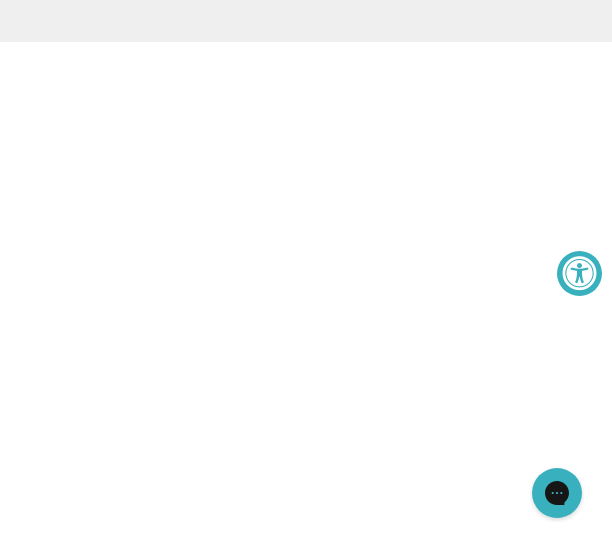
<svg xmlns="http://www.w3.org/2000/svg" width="612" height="545">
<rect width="100%" height="100%" fill="#fff"/>
<rect width="612" height="42" fill="#efefef"/>
<circle cx="579.5" cy="273.5" r="22.5" fill="#39b0bd"/>
<image x="562" y="256" width="35" height="35" href="media/1.png"/>
<image x="530" y="468" width="54" height="54" href="media/2.png"/>
</svg>
